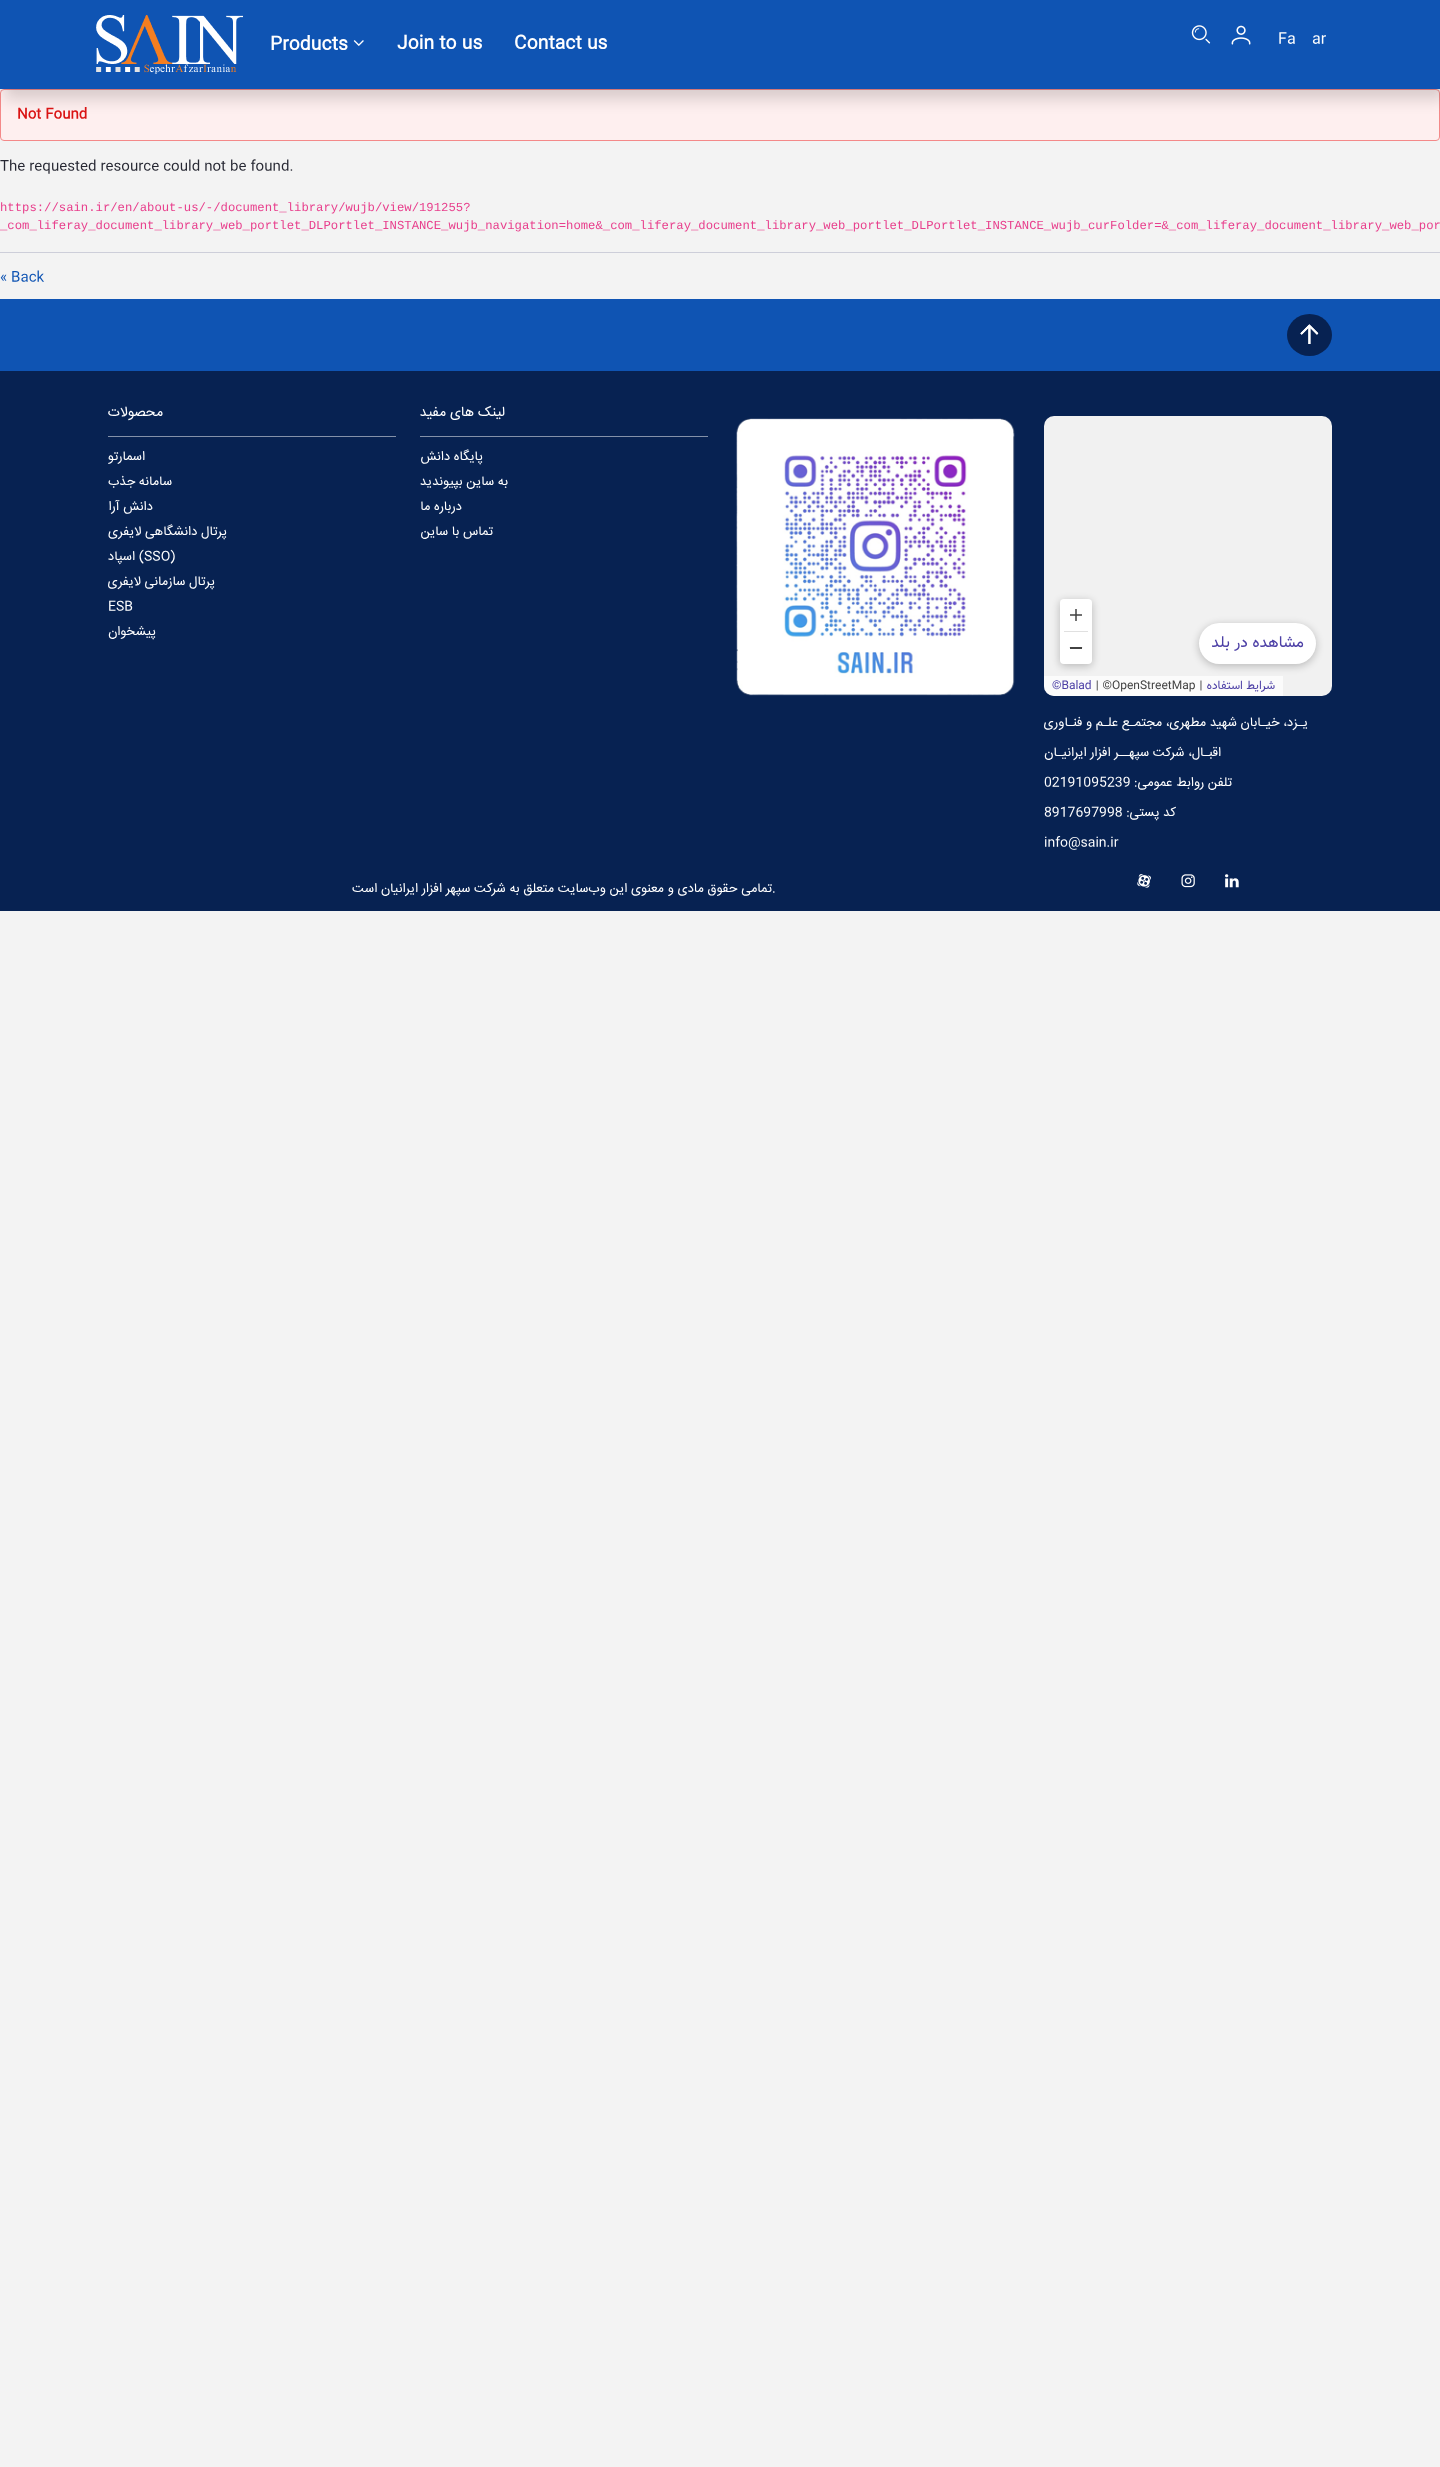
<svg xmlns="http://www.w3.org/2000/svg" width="1440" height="2467">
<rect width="100%" height="100%" fill="#f3f3f3"/>
<rect x="0.5" y="89.5" width="1439" height="51" rx="3.5" fill="#feefef" stroke="#f48989"/>
<rect x="5" y="10" width="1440" height="89" fill="#00000026" filter="blur(7.5px)"/>
<rect width="1440" height="89" fill="#0f54b3"/>
<image x="96" y="15" width="147" height="59" href="media/1.png"/>
<text x="270" y="49" style="font-family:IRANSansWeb;font-size:18px;font-weight:bold;fill:#fff">Products</text>
<image x="353" y="40" width="11" height="6" href="media/2.png"/>
<text x="397" y="48" style="font-family:IRANSansWeb;font-size:18px;font-weight:bold;fill:#fff">Join to us</text>
<text x="514" y="48" style="font-family:IRANSansWeb;font-size:18px;font-weight:bold;fill:#fff">Contact us</text>
<image x="1191" y="25" width="20" height="19" href="media/3.png"/>
<image x="1231" y="25" width="20" height="20" href="media/4.png"/>
<text x="1278" y="43" style="font-family:IRANSansWeb;font-size:15px;fill:#fff">Fa</text>
<text x="1312" y="43" style="font-family:IRANSansWeb;font-size:15px;fill:#fff">ar</text>
<text x="17" y="118" style="font-family:IRANSansWeb;font-size:14px;font-weight:bold;fill:#da1414">Not Found</text>
<text x="0" y="170" style="font-family:IRANSansWeb;font-size:14px;fill:#272833">The requested resource could not be found.</text>
<text x="0" y="211" style="font-family:Liberation Mono;font-size:12.25px;fill:#e83e8c">https://sain.ir/en/about-us/-/document_library/wujb/view/191255?</text>
<text x="0" y="229" style="font-family:Liberation Mono;font-size:12.25px;fill:#e83e8c">_com_liferay_document_library_web_portlet_DLPortlet_INSTANCE_wujb_navigation=home&amp;_com_liferay_document_library_web_portlet_DLPortlet_INSTANCE_wujb_curFolder=&amp;_com_liferay_document_library_web_por</text>
<rect y="252" width="1440" height="1" fill="#cdced9"/>
<text x="0" y="281" style="font-family:IRANSansWeb;font-size:14px;fill:#0f54b3">« Back</text>
<rect y="371" width="1440" height="540" fill="#072252"/>
<rect y="299" width="1440" height="72" fill="#0f54b3"/>
<ellipse cx="1309.5" cy="335" rx="22.5" ry="21" fill="#072252"/>
<image x="1300" y="324" width="19" height="20" href="media/5.png"/>
<rect x="108" y="436" width="288" height="1" fill="#8391a9"/>
<text x="163" y="416" style="font-family:IRANSansWeb;font-size:14px;direction:rtl;fill:#fff">محصولات</text>
<text x="145" y="460" style="font-family:IRANSansWeb;font-size:13px;direction:rtl;fill:#fff">اسمارتو</text>
<text x="172" y="485" style="font-family:IRANSansWeb;font-size:13px;direction:rtl;fill:#fff">سامانه جذب</text>
<text x="153" y="510" style="font-family:IRANSansWeb;font-size:13px;direction:rtl;fill:#fff">دانش آرا</text>
<text x="227" y="535" style="font-family:IRANSansWeb;font-size:13px;direction:rtl;fill:#fff">پرتال دانشگاهی لایفری</text>
<text x="135" y="560" style="font-family:IRANSansWeb;font-size:13px;direction:rtl;fill:#fff">اسپاد</text>
<text x="139" y="560" style="font-family:IRANSansWeb;font-size:13px;fill:#fff">(SSO)</text>
<text x="215" y="585" style="font-family:IRANSansWeb;font-size:13px;direction:rtl;fill:#fff">پرتال سازمانی لایفری</text>
<text x="108" y="610" style="font-family:IRANSansWeb;font-size:13px;fill:#fff">ESB</text>
<text x="156" y="635" style="font-family:IRANSansWeb;font-size:13px;direction:rtl;fill:#fff">پیشخوان</text>
<rect x="420" y="436" width="288" height="1" fill="#8391a9"/>
<text x="505" y="416" style="font-family:IRANSansWeb;font-size:14px;direction:rtl;fill:#fff">لینک های مفید</text>
<text x="483" y="460" style="font-family:IRANSansWeb;font-size:13px;direction:rtl;fill:#fff">پایگاه دانش</text>
<text x="508" y="485" style="font-family:IRANSansWeb;font-size:13px;direction:rtl;fill:#fff">به ساین بپیوندید</text>
<text x="462" y="510" style="font-family:IRANSansWeb;font-size:13px;direction:rtl;fill:#fff">درباره ما</text>
<text x="493" y="535" style="font-family:IRANSansWeb;font-size:13px;direction:rtl;fill:#fff">تماس با ساین</text>
<image x="736" y="418" width="279" height="278" href="media/6.png"/>
<image x="1044" y="416" width="288" height="280" href="media/7.png"/>
<text x="1308" y="726" style="font-family:IRANSansWeb;font-size:13px;direction:rtl;fill:#fff">یـزد، خیـابان شهید مطهری، مجتمـع علـم و فنـاوری</text>
<text x="1221" y="756" style="font-family:IRANSansWeb;font-size:13px;direction:rtl;fill:#fff">اقبـال، شرکت سپهــر افزار ایرانیـان</text>
<text x="1044" y="786" style="font-family:IRANSansWeb;font-size:13px;fill:#fff">02191095239</text>
<text x="1232" y="786" style="font-family:IRANSansWeb;font-size:13px;direction:rtl;fill:#fff">تلفن رواﺑﻂ ﻋﻤﻮﻣﯽ:</text>
<text x="1044" y="816" style="font-family:IRANSansWeb;font-size:13px;fill:#fff">8917697998</text>
<text x="1176" y="816" style="font-family:IRANSansWeb;font-size:13px;direction:rtl;fill:#fff">کد پستی:</text>
<text x="1044" y="846" style="font-family:IRANSansWeb;font-size:13px;fill:#fff">info@sain.ir</text>
<text x="772" y="892" style="font-family:IRANSansWeb;font-size:13px;direction:rtl;fill:#fff">تمامی حقوق مادی و معنوی این وب‌سایت متعلق به شرکت سپهر افزار ایرانیان است</text>
<text x="772" y="892" style="font-family:IRANSansWeb;font-size:13px;fill:#fff">.</text>
<image x="1137" y="874" width="14" height="14" href="media/8.png"/>
<image x="1181" y="874" width="14" height="14" href="media/9.png"/>
<image x="1225" y="874" width="14" height="14" href="media/10.png"/>
</svg>
